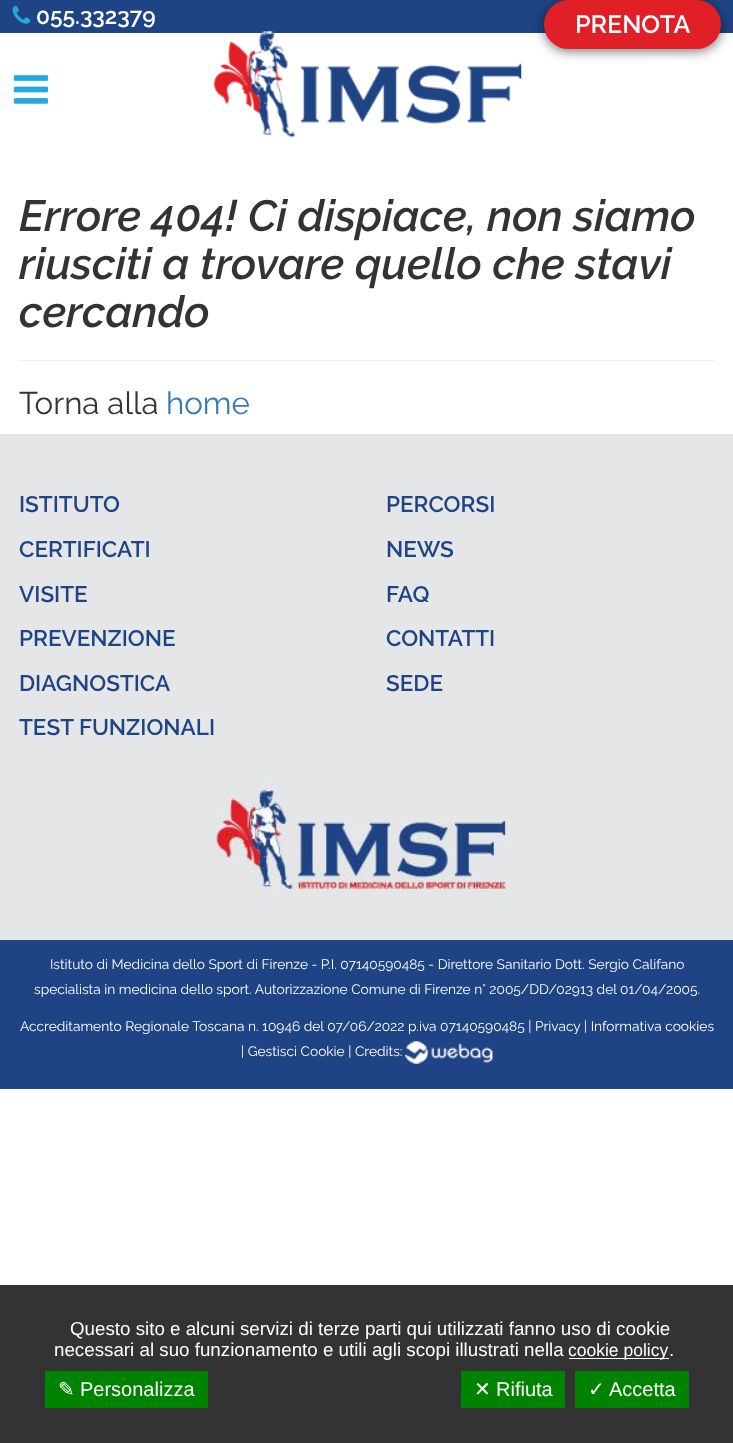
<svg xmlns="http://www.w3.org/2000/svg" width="733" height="1443">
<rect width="100%" height="100%" fill="#fff"/>
<rect width="733" height="33" fill="#1e4485"/>
<image x="12" y="5" width="19" height="19" href="media/1.png"/>
<text x="36" y="24" style="font-family:Raleway;font-size:22.75px;font-weight:600;fill:#fff">055.332379</text>
<rect x="544" y="3" width="177" height="48" rx="24" fill="#0000008c" filter="blur(6px)"/>
<rect x="544" width="177" height="49" rx="24.5" fill="#e11f27"/>
<text x="575" y="33" style="font-family:Raleway;font-size:25px;font-weight:600;fill:#fff">PRENOTA</text>
<image x="213" y="31" width="309" height="107" href="media/2.png"/>
<rect x="646" y="63" width="44" height="1" fill="#fff"/>
<image x="13" y="75" width="36" height="29" href="media/3.png"/>
<rect x="19" y="360" width="696" height="1" fill="#eee"/>
<text x="19" y="231" style="font-family:Raleway;font-size:43.75px;font-weight:600;font-style:italic;fill:#333">Errore 404! Ci dispiace, non siamo</text>
<text x="19" y="279" style="font-family:Raleway;font-size:43.75px;font-weight:600;font-style:italic;fill:#333">riusciti a trovare quello che stavi</text>
<text x="19" y="327" style="font-family:Raleway;font-size:43.75px;font-weight:600;font-style:italic;fill:#333">cercando</text>
<text x="19" y="414" style="font-family:Raleway;font-size:31.25px;fill:#333">Torna alla</text>
<text x="166" y="414" style="font-family:Raleway;font-size:31.25px;fill:#337ab7">home</text>
<rect y="434" width="733" height="506" fill="#e5e6e7"/>
<text x="19" y="512" style="font-family:Raleway;font-size:22.5px;font-weight:600;fill:#1e4485">ISTITUTO</text>
<text x="19" y="557" style="font-family:Raleway;font-size:22.5px;font-weight:600;fill:#1e4485">CERTIFICATI</text>
<text x="19" y="602" style="font-family:Raleway;font-size:22.5px;font-weight:600;fill:#1e4485">VISITE</text>
<text x="19" y="646" style="font-family:Raleway;font-size:22.5px;font-weight:600;fill:#1e4485">PREVENZIONE</text>
<text x="19" y="691" style="font-family:Raleway;font-size:22.5px;font-weight:600;fill:#1e4485">DIAGNOSTICA</text>
<text x="19" y="735" style="font-family:Raleway;font-size:22.5px;font-weight:600;fill:#1e4485">TEST FUNZIONALI</text>
<text x="386" y="512" style="font-family:Raleway;font-size:22.5px;font-weight:600;fill:#1e4485">PERCORSI</text>
<text x="386" y="557" style="font-family:Raleway;font-size:22.5px;font-weight:600;fill:#1e4485">NEWS</text>
<text x="386" y="602" style="font-family:Raleway;font-size:22.5px;font-weight:600;fill:#1e4485">FAQ</text>
<text x="386" y="646" style="font-family:Raleway;font-size:22.5px;font-weight:600;fill:#1e4485">CONTATTI</text>
<text x="386" y="691" style="font-family:Raleway;font-size:22.5px;font-weight:600;fill:#1e4485">SEDE</text>
<image x="206" y="781" width="301" height="121" href="media/4.png"/>
<rect y="940" width="733" height="149" fill="#1e4485"/>
<text x="50" y="969" style="font-family:Raleway;font-size:13.75px;fill:#fff">Istituto di Medicina dello Sport di Firenze - P.I. 07140590485 - Direttore Sanitario Dott. Sergio Califano</text>
<text x="34" y="994" style="font-family:Raleway;font-size:13.75px;fill:#fff">specialista in medicina dello sport. Autorizzazione Comune di Firenze n° 2005/DD/02913 del 01/04/2005.</text>
<text x="20" y="1031" style="font-family:Raleway;font-size:13.75px;fill:#fff">Accreditamento Regionale Toscana n. 10946 del 07/06/2022 p.iva 07140590485 | Privacy</text>
<text x="584" y="1031" style="font-family:Raleway;font-size:13.75px;fill:#fff">| Informativa cookies</text>
<text x="241" y="1056" style="font-family:Raleway;font-size:13.75px;fill:#fff">| Gestisci Cookie | Credits:</text>
<image x="405" y="1041" width="88" height="23" href="media/5.png"/>
<rect y="1285" width="733" height="158" fill="#333"/>
<text x="70" y="1335" style="font-family:Liberation Sans;font-size:18.75px;fill:#fff">Questo sito e alcuni servizi di terze parti qui utilizzati fanno uso di cookie</text>
<text x="54" y="1356" style="font-family:Liberation Sans;font-size:18.75px;fill:#fff">necessari al suo funzionamento e utili agli scopi illustrati nella</text>
<rect x="569" y="1358" width="100" height="1" fill="#fff"/>
<text x="568" y="1356" style="font-family:Liberation Sans;font-size:17.5px;fill:#fff">cookie policy</text>
<text x="669" y="1356" style="font-family:Liberation Sans;font-size:18.75px;fill:#fff">.</text>
<rect x="45" y="1371" width="163" height="37" fill="#008300"/>
<text x="58" y="1396" style="font-family:DejaVu Sans;font-size:20px;fill:#fff">✎</text>
<text x="80" y="1396" style="font-family:Liberation Sans;font-size:20px;fill:#fff">Personalizza</text>
<rect x="461" y="1371" width="104" height="37" fill="#008300"/>
<text x="474" y="1396" style="font-family:DejaVu Sans;font-size:20px;fill:#fff">✕</text>
<text x="496" y="1396" style="font-family:Liberation Sans;font-size:20px;fill:#fff">Rifiuta</text>
<rect x="575" y="1371" width="114" height="37" fill="#008300"/>
<text x="588" y="1396" style="font-family:DejaVu Sans;font-size:20px;fill:#fff">✓</text>
<text x="609" y="1396" style="font-family:Liberation Sans;font-size:20px;fill:#fff">Accetta</text>
</svg>
